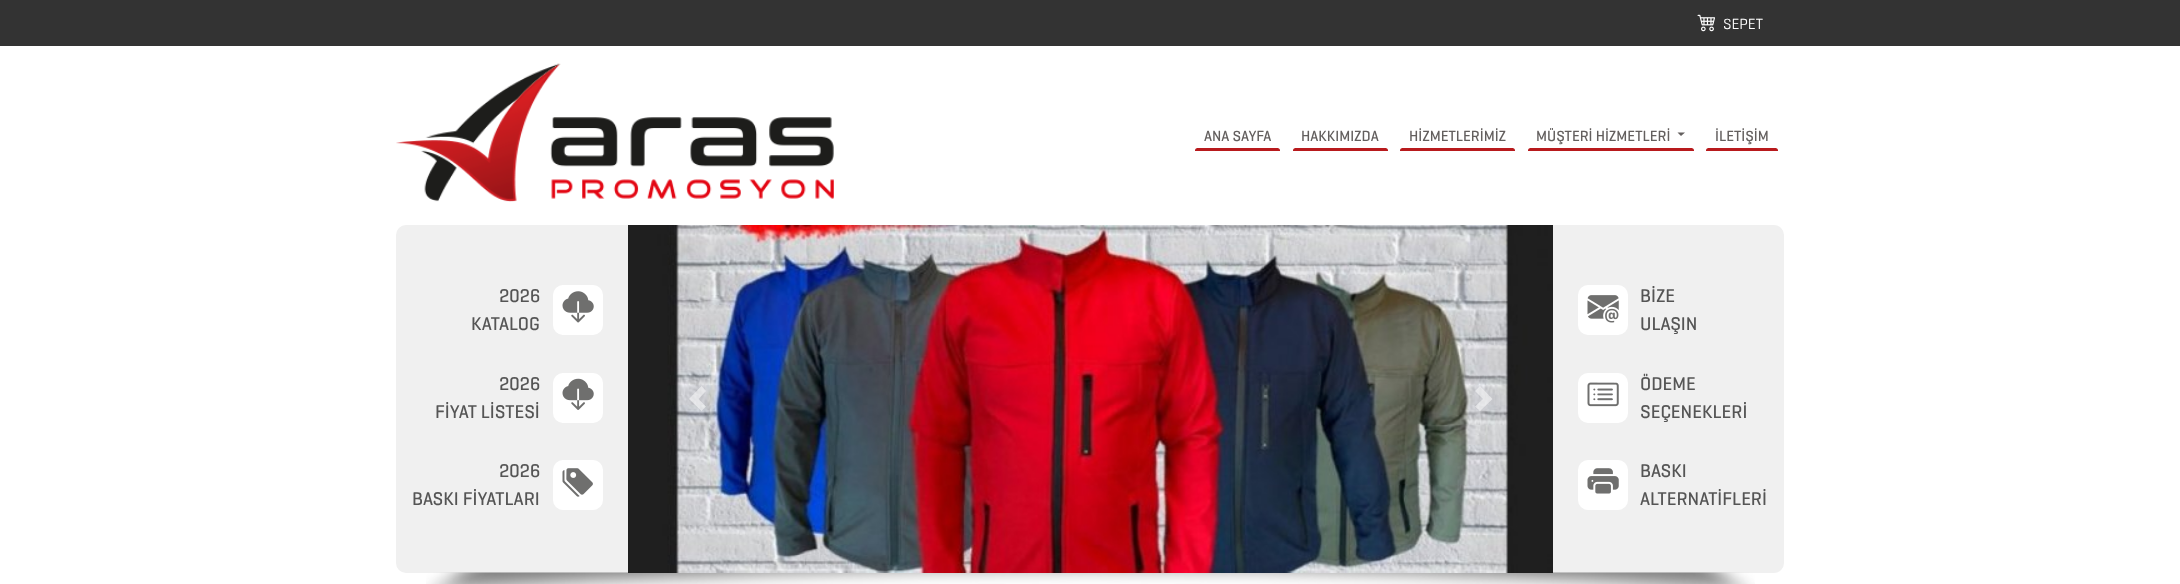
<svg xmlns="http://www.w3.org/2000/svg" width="2180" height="584">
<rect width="100%" height="100%" fill="#fff"/>
<rect width="2180" height="46" fill="#333"/>
<image x="1697" y="14" width="18" height="18" href="media/1.png"/>
<text x="1723" y="29" style="font-family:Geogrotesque;font-size:15px;fill:#fff">SEPET</text>
<image x="396" y="63" width="438" height="139" href="media/2.png"/>
<text x="1204" y="141" style="font-family:Geogrotesque;font-size:15px;font-weight:500;fill:#635f5e">ANA SAYFA</text>
<path d="M1197.5 148h80c1.5 0 2.5 1 2.5 2.5v.5h-85v-.5c0-1.5 1-2.5 2.5-2.5z" fill="#b81a1d"/>
<text x="1301" y="141" style="font-family:Geogrotesque;font-size:15px;font-weight:500;fill:#635f5e">HAKKIMIZDA</text>
<path d="M1295.5 148h90c1.5 0 2.5 1 2.5 2.5v.5h-95v-.5c0-1.5 1-2.5 2.5-2.5z" fill="#b81a1d"/>
<text x="1409" y="141" style="font-family:Geogrotesque;font-size:15px;font-weight:500;fill:#635f5e">HİZMETLERİMİZ</text>
<path d="M1402.5 148h110c1.5 0 2.5 1 2.5 2.5v.5h-115v-.5c0-1.5 1-2.5 2.5-2.5z" fill="#b81a1d"/>
<text x="1536" y="141" style="font-family:Geogrotesque;font-size:15px;font-weight:500;fill:#635f5e">MÜŞTERİ HİZMETLERİ</text>
<path d="M1677.5 132.5h7.5l-4 3.5z" fill="#635f5e"/>
<path d="M1530.5 148h161c1.5 0 2.5 1 2.5 2.5v.5h-166v-.5c0-1.5 1-2.5 2.5-2.5z" fill="#b81a1d"/>
<text x="1715" y="141" style="font-family:Geogrotesque;font-size:15px;font-weight:500;fill:#635f5e">İLETİŞİM</text>
<path d="M1708.5 148h67c1.5 0 2.5 1 2.5 2.5v.5h-72v-.5c0-1.5 1-2.5 2.5-2.5z" fill="#b81a1d"/>
<rect x="396" y="225" width="1388" height="348" rx="10" fill="#f0f0f0"/>
<text x="499" y="302" style="font-family:Geogrotesque;font-size:18.75px;font-weight:500;fill:#555">2026</text>
<text x="471" y="330" style="font-family:Geogrotesque;font-size:18.75px;font-weight:500;fill:#555">KATALOG</text>
<rect x="553" y="285" width="50" height="50" rx="10" fill="#fff"/>
<image x="562" y="291" width="32" height="32" href="media/3.png"/>
<text x="499" y="390" style="font-family:Geogrotesque;font-size:18.75px;font-weight:500;fill:#555">2026</text>
<text x="435" y="418" style="font-family:Geogrotesque;font-size:18.75px;font-weight:500;fill:#555">FİYAT LİSTESİ</text>
<rect x="553" y="373" width="50" height="50" rx="10" fill="#fff"/>
<image x="562" y="378" width="32" height="32" href="media/4.png"/>
<text x="499" y="477" style="font-family:Geogrotesque;font-size:18.75px;font-weight:500;fill:#555">2026</text>
<text x="412" y="505" style="font-family:Geogrotesque;font-size:18.75px;font-weight:500;fill:#555">BASKI FİYATLARI</text>
<rect x="553" y="460" width="50" height="50" rx="10" fill="#fff"/>
<image x="562" y="468" width="31" height="29" href="media/5.png"/>
<image x="426" y="572" width="1329" height="12" href="media/10.png"/>
<image x="628" y="225" width="925" height="348" href="media/6.png"/>
<path d="M701.5 386l-12.5 13l12.5 12l4.5-4.5l-7.5-7.5l7.5-8z" fill="#ffffff80"/>
<path d="M1480 386l-5 5l8 8l-8 7.5l5 4.5l12.5-12z" fill="#ffffff80"/>
<rect x="1578" y="285" width="50" height="50" rx="10" fill="#fff"/>
<image x="1587" y="295" width="32" height="28" href="media/7.png"/>
<text x="1640" y="302" style="font-family:Geogrotesque;font-size:18.75px;font-weight:500;fill:#555">BİZE</text>
<text x="1640" y="330" style="font-family:Geogrotesque;font-size:18.75px;font-weight:500;fill:#555">ULAŞIN</text>
<rect x="1578" y="373" width="50" height="50" rx="10" fill="#fff"/>
<image x="1587" y="382" width="32" height="25" href="media/8.png"/>
<text x="1640" y="390" style="font-family:Geogrotesque;font-size:18.75px;font-weight:500;fill:#555">ÖDEME</text>
<text x="1640" y="418" style="font-family:Geogrotesque;font-size:18.75px;font-weight:500;fill:#555">SEÇENEKLERİ</text>
<rect x="1578" y="460" width="50" height="50" rx="10" fill="#fff"/>
<image x="1587" y="468" width="32" height="26" href="media/9.png"/>
<text x="1640" y="477" style="font-family:Geogrotesque;font-size:18.75px;font-weight:500;fill:#555">BASKI</text>
<text x="1640" y="505" style="font-family:Geogrotesque;font-size:18.75px;font-weight:500;fill:#555">ALTERNATİFLERİ</text>
</svg>
